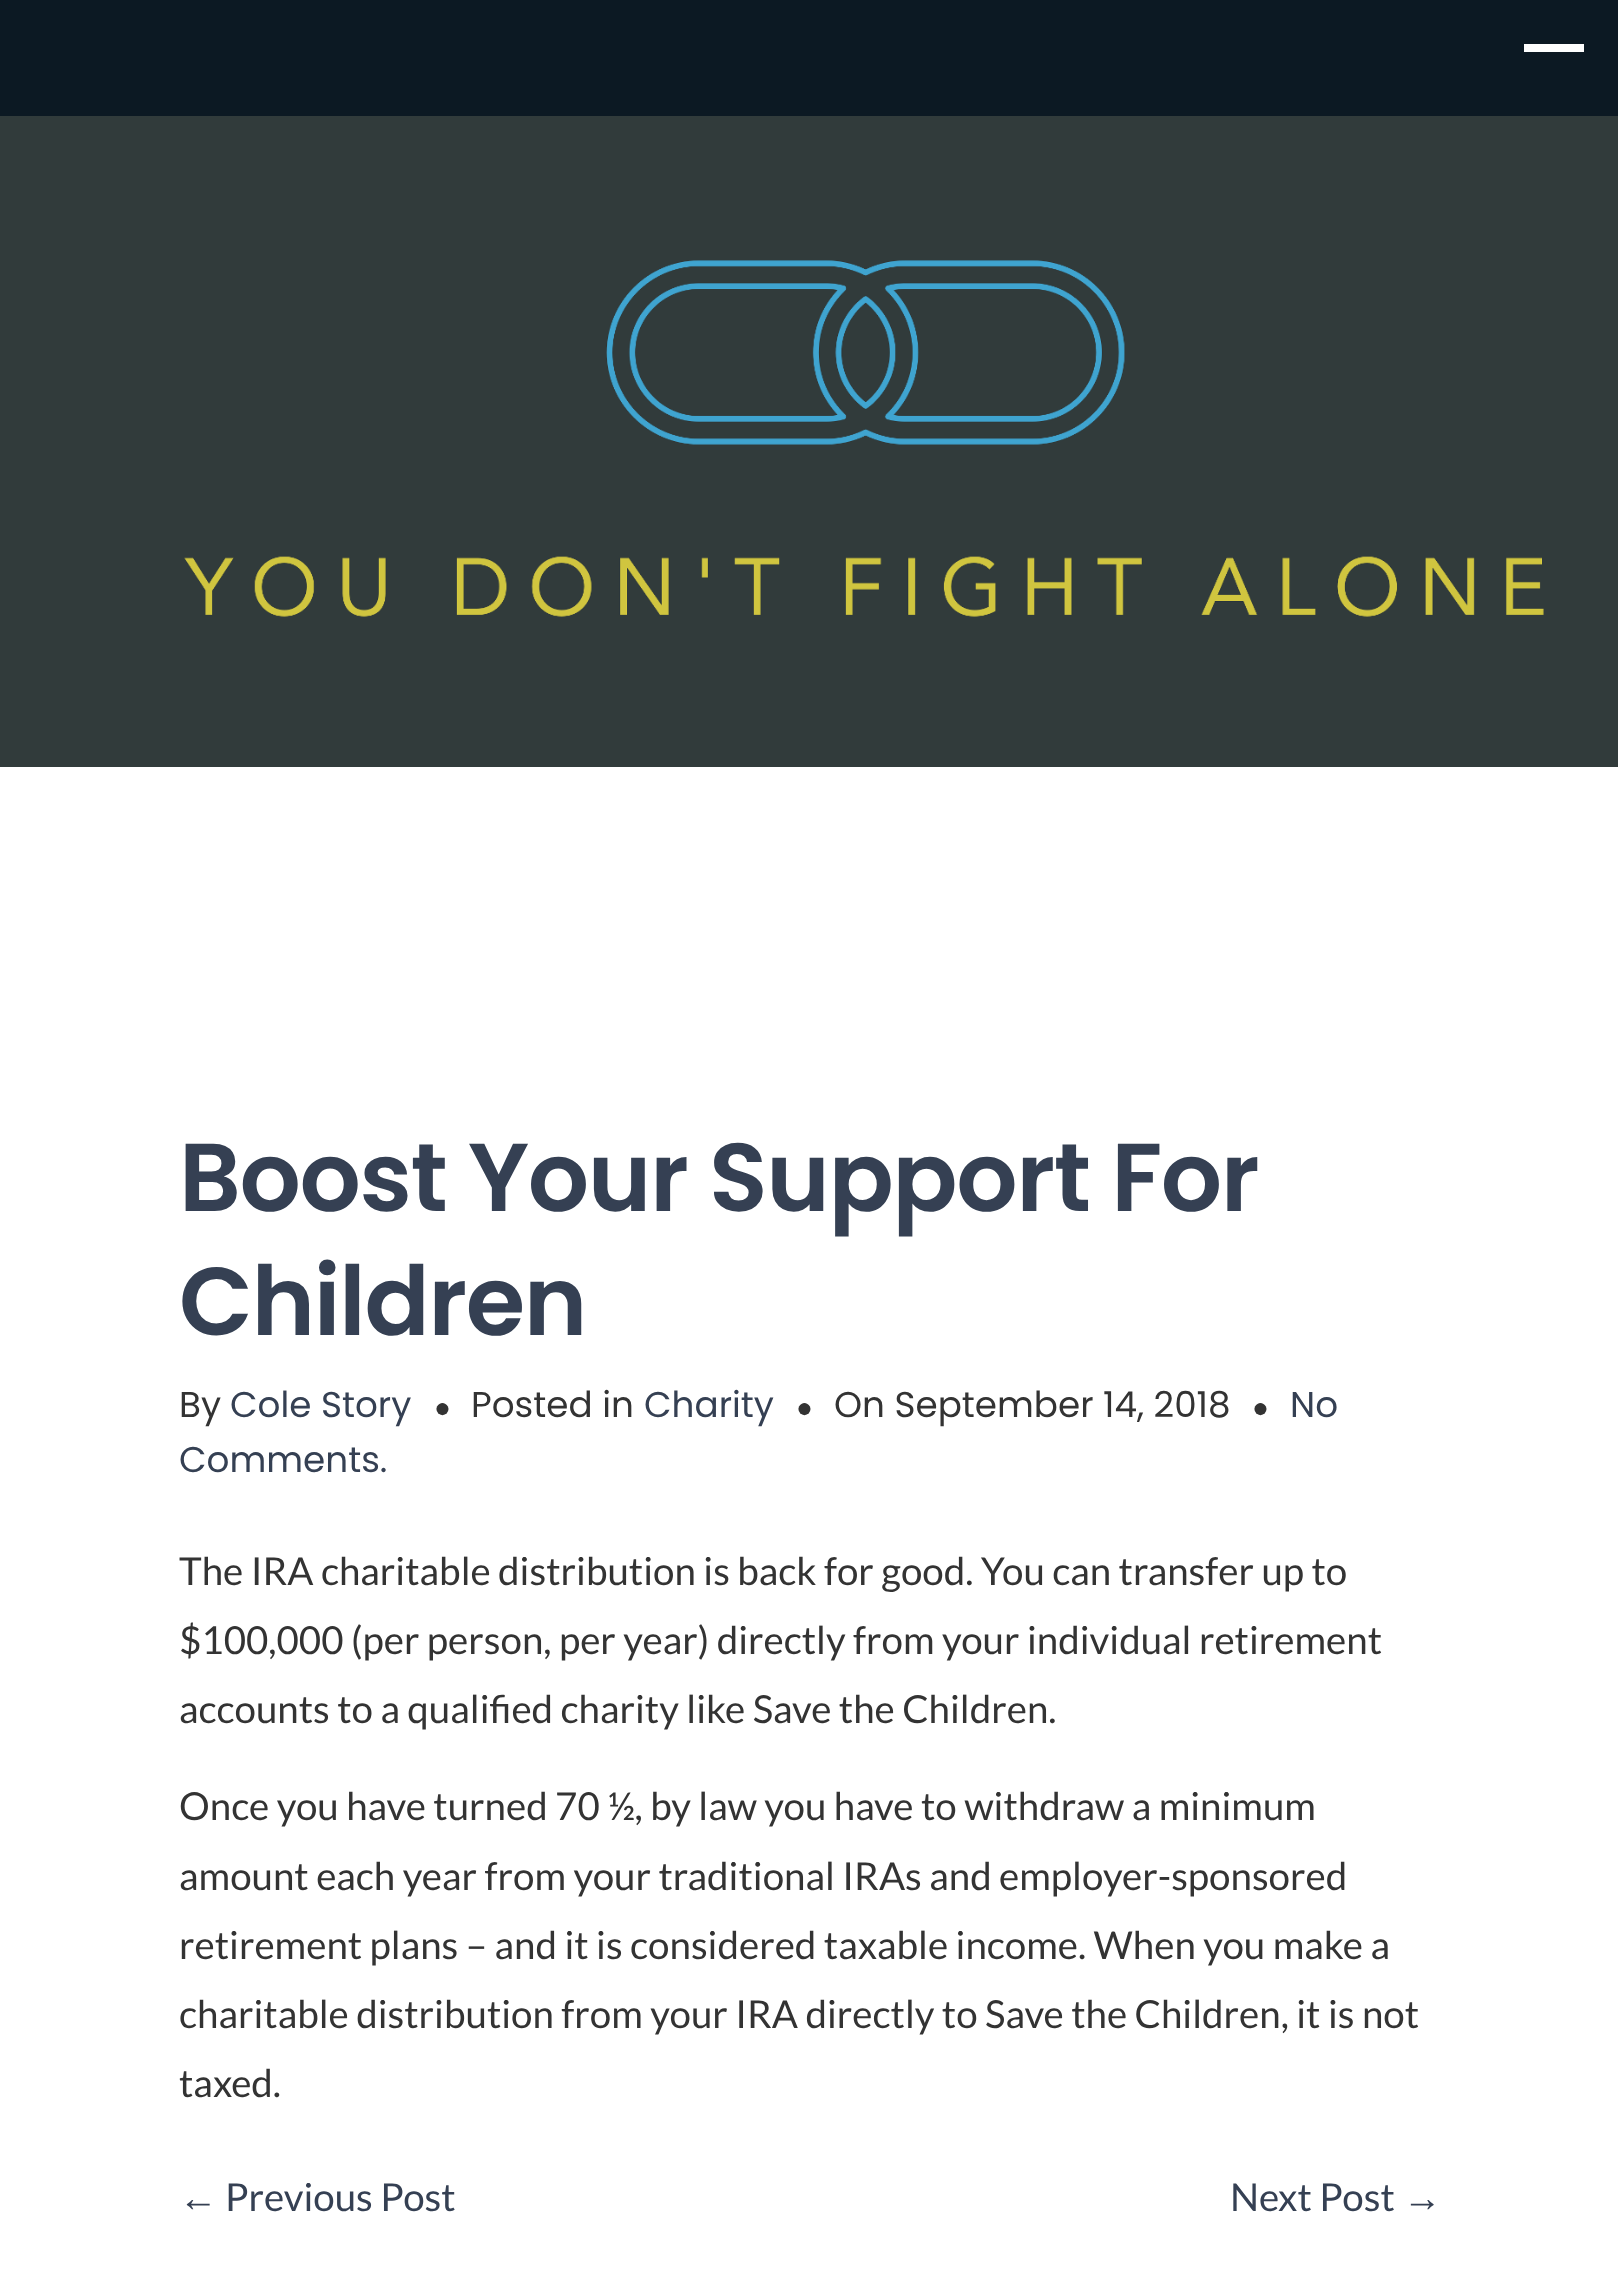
<svg xmlns="http://www.w3.org/2000/svg" width="1618" height="2270">
<rect width="100%" height="100%" fill="#fff"/>
<rect width="1618" height="116" fill="#0c1923"/>
<rect x="1524" y="44" width="60" height="8" fill="#fff"/>
<rect y="116" width="1618" height="651" fill="#313b3b"/>
<image x="184" y="260" width="1360" height="357" href="media/1.png"/>
<text x="179" y="1211" style="font-family:Poppins;font-size:96.25px;font-weight:600;letter-spacing:-1.4px;fill:#354053">Boost Your Support For</text>
<text x="179" y="1335" style="font-family:Poppins;font-size:96.25px;font-weight:600;letter-spacing:-1.4px;fill:#354053">Children</text>
<text x="179" y="1417" style="font-family:Poppins;font-size:35.75px;fill:#333">By</text>
<text x="230" y="1417" style="font-family:Poppins;font-size:35.75px;fill:#354053">Cole Story</text>
<text x="434" y="1417" style="font-family:Liberation Serif;font-size:28px;fill:#333">●</text>
<text x="471" y="1417" style="font-family:Poppins;font-size:35.75px;fill:#333">Posted in</text>
<text x="644" y="1417" style="font-family:Poppins;font-size:35.75px;fill:#354053">Charity</text>
<text x="796" y="1417" style="font-family:Liberation Serif;font-size:28px;fill:#333">●</text>
<text x="834" y="1417" style="font-family:Poppins;font-size:35.75px;fill:#333">On September 14, 2018</text>
<text x="1252" y="1417" style="font-family:Liberation Serif;font-size:28px;fill:#333">●</text>
<text x="1290" y="1417" style="font-family:Poppins;font-size:35.75px;fill:#354053">No</text>
<text x="179" y="1472" style="font-family:Poppins;font-size:35.75px;fill:#354053">Comments.</text>
<text x="179" y="1585" style="font-family:Lato;font-size:38.5px;fill:#333">The IRA charitable distribution is back for good. You can transfer up to</text>
<text x="179" y="1654" style="font-family:Lato;font-size:38.5px;fill:#333">$100,000 (per person, per year) directly from your individual retirement</text>
<text x="179" y="1723" style="font-family:Lato;font-size:38.5px;fill:#333">accounts to a qualified charity like Save the Children.</text>
<text x="179" y="1820" style="font-family:Lato;font-size:38.5px;fill:#333">Once you have turned 70 ½, by law you have to withdraw a minimum</text>
<text x="179" y="1890" style="font-family:Lato;font-size:38.5px;fill:#333">amount each year from your traditional IRAs and employer-sponsored</text>
<text x="179" y="1959" style="font-family:Lato;font-size:38.5px;fill:#333">retirement plans – and it is considered taxable income. When you make a</text>
<text x="179" y="2028" style="font-family:Lato;font-size:38.5px;fill:#333">charitable distribution from your IRA directly to Save the Children, it is not</text>
<text x="179" y="2097" style="font-family:Lato;font-size:38.5px;fill:#333">taxed.</text>
<text x="179" y="2211" style="font-family:Liberation Sans;font-size:38.5px;fill:#354053">←</text>
<text x="225" y="2211" style="font-family:Lato;font-size:38.5px;fill:#354053">Previous Post</text>
<text x="1230" y="2211" style="font-family:Lato;font-size:38.5px;fill:#354053">Next Post</text>
<text x="1403" y="2211" style="font-family:Liberation Sans;font-size:38.5px;fill:#354053">→</text>
</svg>
